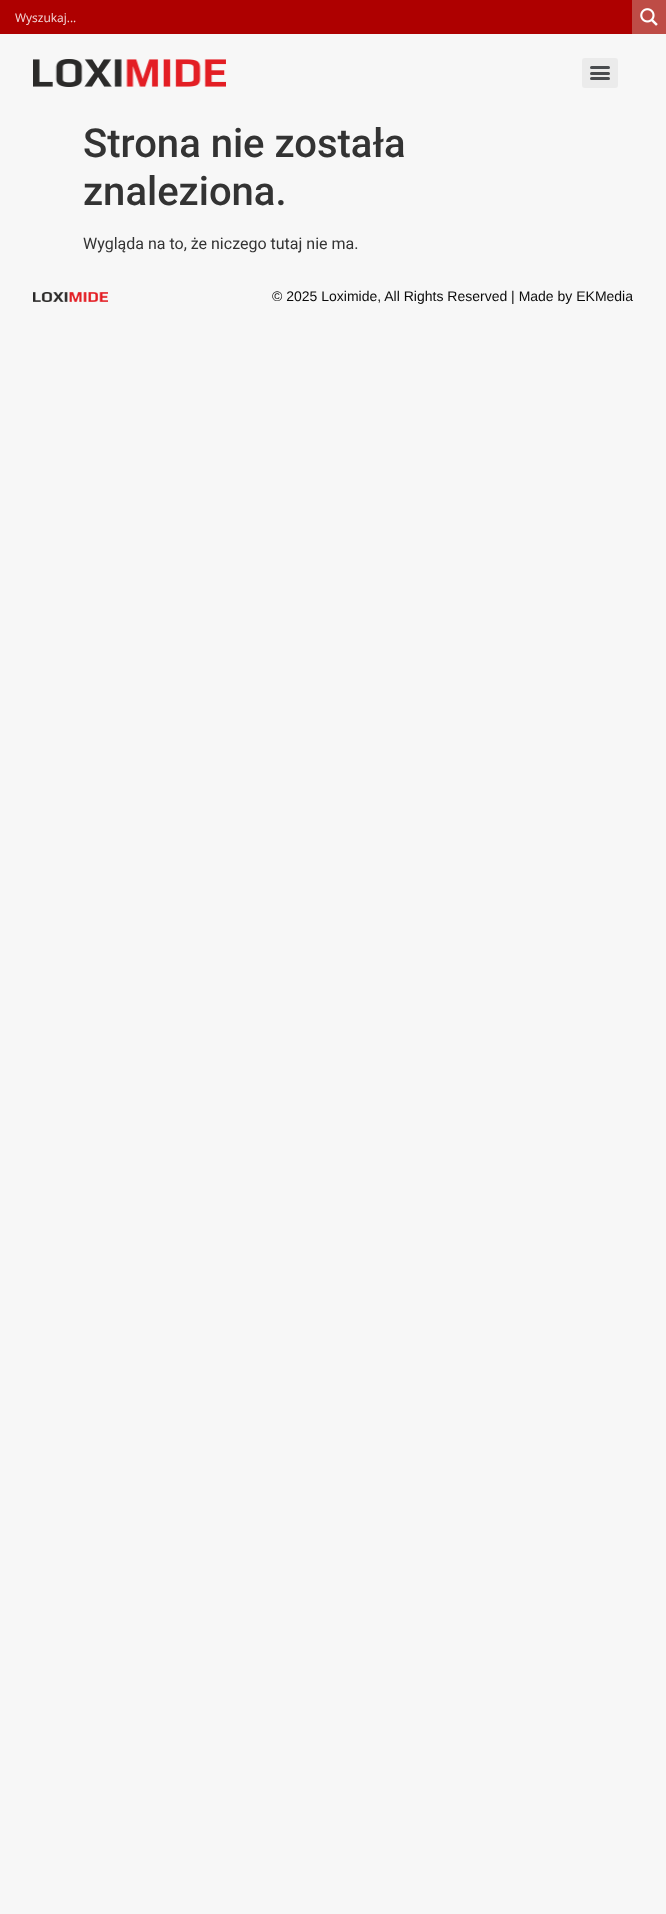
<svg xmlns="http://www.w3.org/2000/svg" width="666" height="1914">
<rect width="100%" height="100%" fill="#f7f7f7"/>
<rect width="632" height="34" fill="#ae0000"/>
<text x="15" y="22" style="font-family:Open Sans;font-size:12px;fill:#f3d9d9">Wyszukaj...</text>
<rect x="632" width="34" height="34" fill="#be4c46"/>
<image x="640" y="8" width="18" height="18" href="media/1.png"/>
<image x="33" y="59" width="193" height="28" href="media/2.png"/>
<rect x="582" y="58" width="36" height="30" rx="3" fill="#ebebeb"/>
<rect x="590" y="72" width="20" height="3" rx="1.5" fill="#494c4f"/>
<rect x="590" y="66" width="20" height="3" rx="1.5" fill="#494c4f"/>
<rect x="590" y="77" width="20" height="3" rx="1.5" fill="#494c4f"/>
<text x="83" y="157" style="font-family:Roboto;font-size:40px;font-weight:500;fill:#333">Strona nie została</text>
<text x="83" y="205" style="font-family:Roboto;font-size:40px;font-weight:500;fill:#333">znaleziona.</text>
<text x="83" y="249" style="font-family:Roboto;font-size:16px;fill:#333">Wygląda na to, że niczego tutaj nie ma.</text>
<image x="33" y="292" width="75" height="10" href="media/3.png"/>
<text x="272" y="301" style="font-family:Liberation Sans;font-size:14px;fill:#0a0a0a">© 2025 Loximide, All Rights Reserved | Made by EKMedia</text>
</svg>
